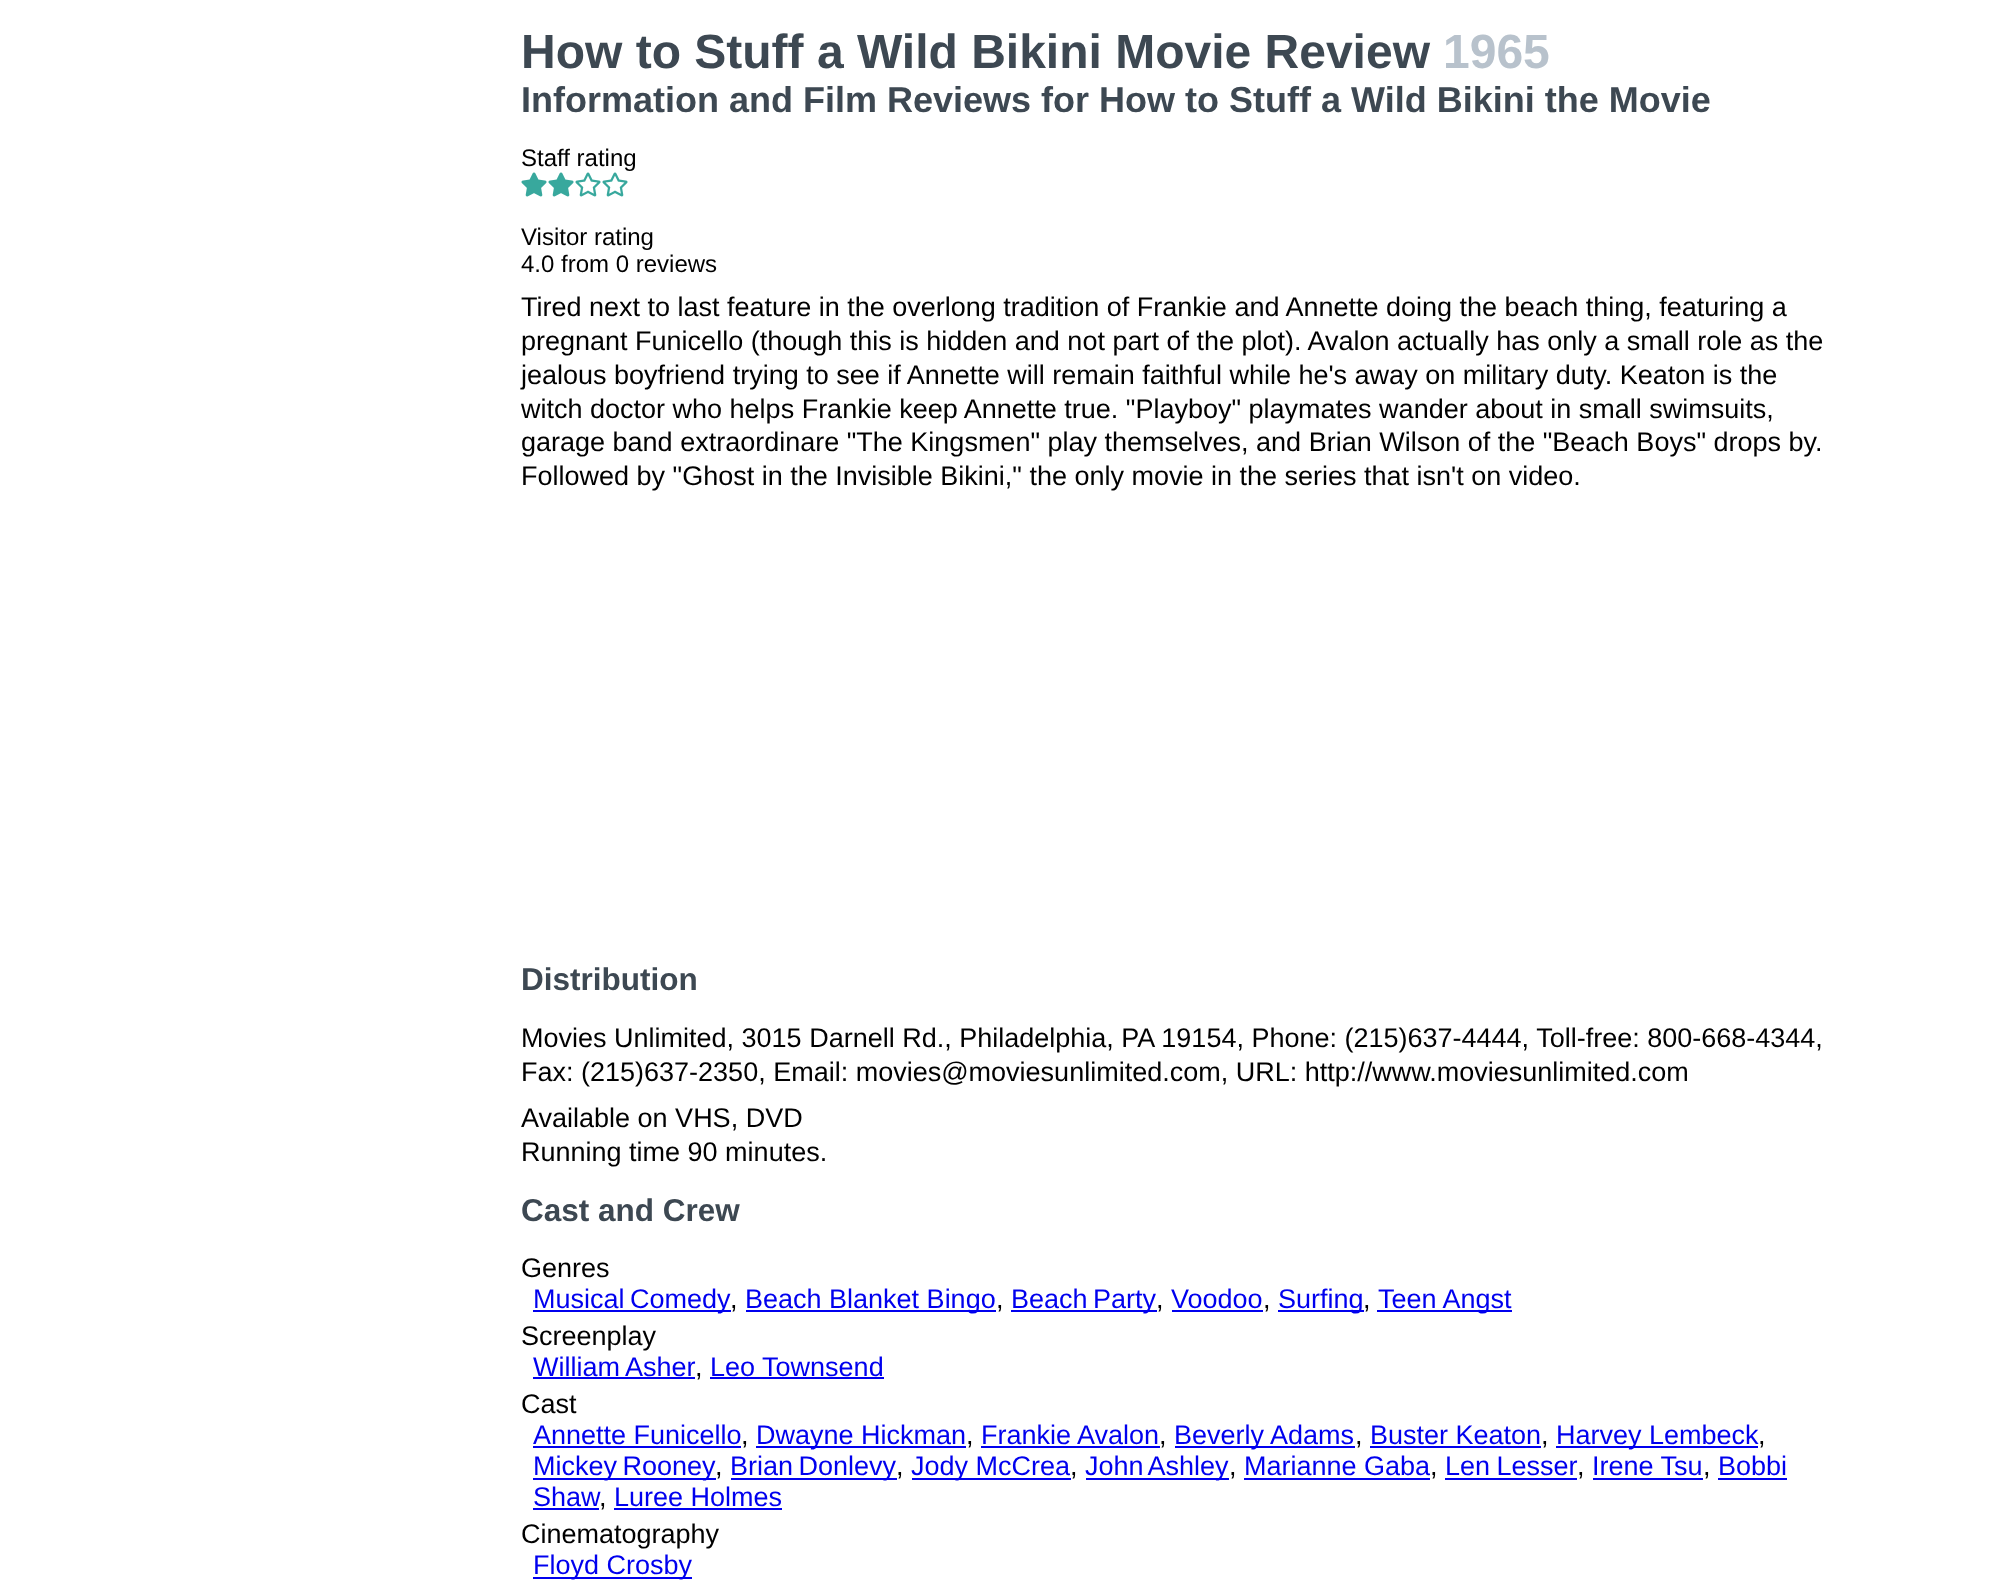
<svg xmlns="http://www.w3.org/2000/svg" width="2005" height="1591">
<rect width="100%" height="100%" fill="#fff"/>
<text x="521" y="68" style="font-family:Liberation Sans;font-size:48px;font-weight:bold;fill:#3d4852">How to Stuff a Wild Bikini Movie Review</text>
<text x="1443" y="68" style="font-family:Liberation Sans;font-size:48px;font-weight:bold;fill:#b8c2cc">1965</text>
<text x="521" y="112" style="font-family:Liberation Sans;font-size:36px;font-weight:bold;fill:#3d4852">Information and Film Reviews for How to Stuff a Wild Bikini the Movie</text>
<text x="521" y="166" style="font-family:Liberation Sans;font-size:24px;fill:#000">Staff rating</text>
<image x="521" y="172" width="26" height="25" href="media/1.png"/>
<image x="548" y="172" width="26" height="25" href="media/1.png"/>
<image x="575" y="172" width="26" height="25" href="media/2.png"/>
<image x="602" y="172" width="26" height="25" href="media/2.png"/>
<text x="521" y="245" style="font-family:Liberation Sans;font-size:24px;fill:#000">Visitor rating</text>
<text x="521" y="272" style="font-family:Liberation Sans;font-size:24px;fill:#000">4.0 from 0 reviews</text>
<text x="521" y="316" style="font-family:Liberation Sans;font-size:27px;fill:#000">Tired next to last feature in the overlong tradition of Frankie and Annette doing the beach thing, featuring a</text>
<text x="521" y="350" style="font-family:Liberation Sans;font-size:27px;fill:#000">pregnant Funicello (though this is hidden and not part of the plot). Avalon actually has only a small role as the</text>
<text x="521" y="384" style="font-family:Liberation Sans;font-size:27px;fill:#000">jealous boyfriend trying to see if Annette will remain faithful while he's away on military duty. Keaton is the</text>
<text x="521" y="418" style="font-family:Liberation Sans;font-size:27px;fill:#000">witch doctor who helps Frankie keep Annette true. "Playboy" playmates wander about in small swimsuits,</text>
<text x="521" y="451" style="font-family:Liberation Sans;font-size:27px;fill:#000">garage band extraordinare "The Kingsmen" play themselves, and Brian Wilson of the "Beach Boys" drops by.</text>
<text x="521" y="485" style="font-family:Liberation Sans;font-size:27px;fill:#000">Followed by "Ghost in the Invisible Bikini," the only movie in the series that isn't on video.</text>
<text x="521" y="990" style="font-family:Liberation Sans;font-size:31.5px;font-weight:bold;fill:#3d4852">Distribution</text>
<text x="521" y="1047" style="font-family:Liberation Sans;font-size:27px;fill:#000">Movies Unlimited, 3015 Darnell Rd., Philadelphia, PA 19154, Phone: (215)637-4444, Toll-free: 800-668-4344,</text>
<text x="521" y="1081" style="font-family:Liberation Sans;font-size:27px;fill:#000">Fax: (215)637-2350, Email: movies@moviesunlimited.com, URL: http://www.moviesunlimited.com</text>
<text x="521" y="1127" style="font-family:Liberation Sans;font-size:27px;fill:#000">Available on VHS, DVD</text>
<text x="521" y="1161" style="font-family:Liberation Sans;font-size:27px;fill:#000">Running time 90 minutes.</text>
<text x="521" y="1221" style="font-family:Liberation Sans;font-size:31.5px;font-weight:bold;fill:#3d4852">Cast and Crew</text>
<text x="521" y="1277" style="font-family:Liberation Sans;font-size:27px;fill:#000">Genres</text>
<rect x="533" y="1310" width="198" height="2" fill="#00e"/>
<text x="533" y="1308" word-spacing="-2" style="font-family:Liberation Sans;font-size:27px;fill:#00e">Musical Comedy</text>
<text x="730" y="1308" style="font-family:Liberation Sans;font-size:27px;fill:#000">,</text>
<rect x="746" y="1310" width="250" height="2" fill="#00e"/>
<text x="745" y="1308" style="font-family:Liberation Sans;font-size:27px;fill:#00e">Beach Blanket Bingo</text>
<text x="996" y="1308" style="font-family:Liberation Sans;font-size:27px;fill:#000">,</text>
<rect x="1011" y="1310" width="146" height="2" fill="#00e"/>
<text x="1011" y="1308" word-spacing="-2" style="font-family:Liberation Sans;font-size:27px;fill:#00e">Beach Party</text>
<text x="1156" y="1308" style="font-family:Liberation Sans;font-size:27px;fill:#000">,</text>
<text x="1171" y="1308" style="font-family:Liberation Sans;font-size:27px;fill:#00e">Voodoo</text>
<rect x="1172" y="1310" width="91" height="2" fill="#00e"/>
<text x="1263" y="1308" style="font-family:Liberation Sans;font-size:27px;fill:#000">,</text>
<rect x="1278" y="1310" width="86" height="2" fill="#00e"/>
<text x="1278" y="1308" style="font-family:Liberation Sans;font-size:27px;fill:#00e">Surfing</text>
<text x="1363" y="1308" style="font-family:Liberation Sans;font-size:27px;fill:#000">,</text>
<rect x="1377" y="1310" width="135" height="2" fill="#00e"/>
<text x="1378" y="1308" style="font-family:Liberation Sans;font-size:27px;fill:#00e">Teen Angst</text>
<text x="521" y="1345" style="font-family:Liberation Sans;font-size:27px;fill:#000">Screenplay</text>
<text x="533" y="1376" word-spacing="-1" style="font-family:Liberation Sans;font-size:27px;fill:#00e">William Asher</text>
<rect x="533" y="1377" width="162" height="2" fill="#00e"/>
<text x="695" y="1376" style="font-family:Liberation Sans;font-size:27px;fill:#000">,</text>
<text x="710" y="1376" style="font-family:Liberation Sans;font-size:27px;fill:#00e">Leo Townsend</text>
<rect x="710" y="1377" width="174" height="2" fill="#00e"/>
<text x="521" y="1413" style="font-family:Liberation Sans;font-size:27px;fill:#000">Cast</text>
<text x="533" y="1444" style="font-family:Liberation Sans;font-size:27px;fill:#00e">Annette Funicello</text>
<rect x="533" y="1446" width="208" height="2" fill="#00e"/>
<text x="741" y="1444" style="font-family:Liberation Sans;font-size:27px;fill:#000">,</text>
<rect x="756" y="1446" width="210" height="2" fill="#00e"/>
<text x="756" y="1444" style="font-family:Liberation Sans;font-size:27px;fill:#00e">Dwayne Hickman</text>
<text x="966" y="1444" style="font-family:Liberation Sans;font-size:27px;fill:#000">,</text>
<text x="981" y="1444" style="font-family:Liberation Sans;font-size:27px;fill:#00e">Frankie Avalon</text>
<rect x="981" y="1446" width="179" height="2" fill="#00e"/>
<text x="1159" y="1444" style="font-family:Liberation Sans;font-size:27px;fill:#000">,</text>
<rect x="1175" y="1446" width="180" height="2" fill="#00e"/>
<text x="1174" y="1444" style="font-family:Liberation Sans;font-size:27px;fill:#00e">Beverly Adams</text>
<text x="1355" y="1444" style="font-family:Liberation Sans;font-size:27px;fill:#000">,</text>
<text x="1370" y="1444" style="font-family:Liberation Sans;font-size:27px;fill:#00e">Buster Keaton</text>
<rect x="1370" y="1446" width="171" height="2" fill="#00e"/>
<text x="1541" y="1444" style="font-family:Liberation Sans;font-size:27px;fill:#000">,</text>
<rect x="1556" y="1446" width="202" height="2" fill="#00e"/>
<text x="1556" y="1444" style="font-family:Liberation Sans;font-size:27px;fill:#00e">Harvey Lembeck</text>
<text x="1758" y="1444" style="font-family:Liberation Sans;font-size:27px;fill:#000">,</text>
<rect x="533" y="1478" width="183" height="2" fill="#00e"/>
<text x="533" y="1475" word-spacing="-2" style="font-family:Liberation Sans;font-size:27px;fill:#00e">Mickey Rooney</text>
<text x="715" y="1475" style="font-family:Liberation Sans;font-size:27px;fill:#000">,</text>
<rect x="731" y="1478" width="166" height="2" fill="#00e"/>
<text x="730" y="1475" word-spacing="-2" style="font-family:Liberation Sans;font-size:27px;fill:#00e">Brian Donlevy</text>
<text x="896" y="1475" style="font-family:Liberation Sans;font-size:27px;fill:#000">,</text>
<rect x="912" y="1478" width="159" height="2" fill="#00e"/>
<text x="911" y="1475" style="font-family:Liberation Sans;font-size:27px;fill:#00e">Jody McCrea</text>
<text x="1070" y="1475" style="font-family:Liberation Sans;font-size:27px;fill:#000">,</text>
<rect x="1086" y="1478" width="143" height="2" fill="#00e"/>
<text x="1085" y="1475" word-spacing="-2" style="font-family:Liberation Sans;font-size:27px;fill:#00e">John Ashley</text>
<text x="1229" y="1475" style="font-family:Liberation Sans;font-size:27px;fill:#000">,</text>
<text x="1244" y="1475" style="font-family:Liberation Sans;font-size:27px;fill:#00e">Marianne Gaba</text>
<rect x="1244" y="1478" width="186" height="2" fill="#00e"/>
<text x="1430" y="1475" style="font-family:Liberation Sans;font-size:27px;fill:#000">,</text>
<text x="1445" y="1475" word-spacing="-1" style="font-family:Liberation Sans;font-size:27px;fill:#00e">Len Lesser</text>
<rect x="1445" y="1478" width="132" height="2" fill="#00e"/>
<text x="1577" y="1475" style="font-family:Liberation Sans;font-size:27px;fill:#000">,</text>
<text x="1592" y="1475" style="font-family:Liberation Sans;font-size:27px;fill:#00e">Irene Tsu</text>
<rect x="1593" y="1478" width="110" height="2" fill="#00e"/>
<text x="1703" y="1475" style="font-family:Liberation Sans;font-size:27px;fill:#000">,</text>
<text x="1718" y="1475" style="font-family:Liberation Sans;font-size:27px;fill:#00e">Bobbi</text>
<rect x="1718" y="1478" width="69" height="2" fill="#00e"/>
<text x="533" y="1506" style="font-family:Liberation Sans;font-size:27px;fill:#00e">Shaw</text>
<rect x="533" y="1508" width="66" height="2" fill="#00e"/>
<text x="599" y="1506" style="font-family:Liberation Sans;font-size:27px;fill:#000">,</text>
<text x="614" y="1506" style="font-family:Liberation Sans;font-size:27px;fill:#00e">Luree Holmes</text>
<rect x="614" y="1508" width="168" height="2" fill="#00e"/>
<text x="521" y="1543" style="font-family:Liberation Sans;font-size:27px;fill:#000">Cinematography</text>
<rect x="533" y="1577" width="159" height="2" fill="#00e"/>
<text x="533" y="1574" style="font-family:Liberation Sans;font-size:27px;fill:#00e">Floyd Crosby</text>
</svg>
